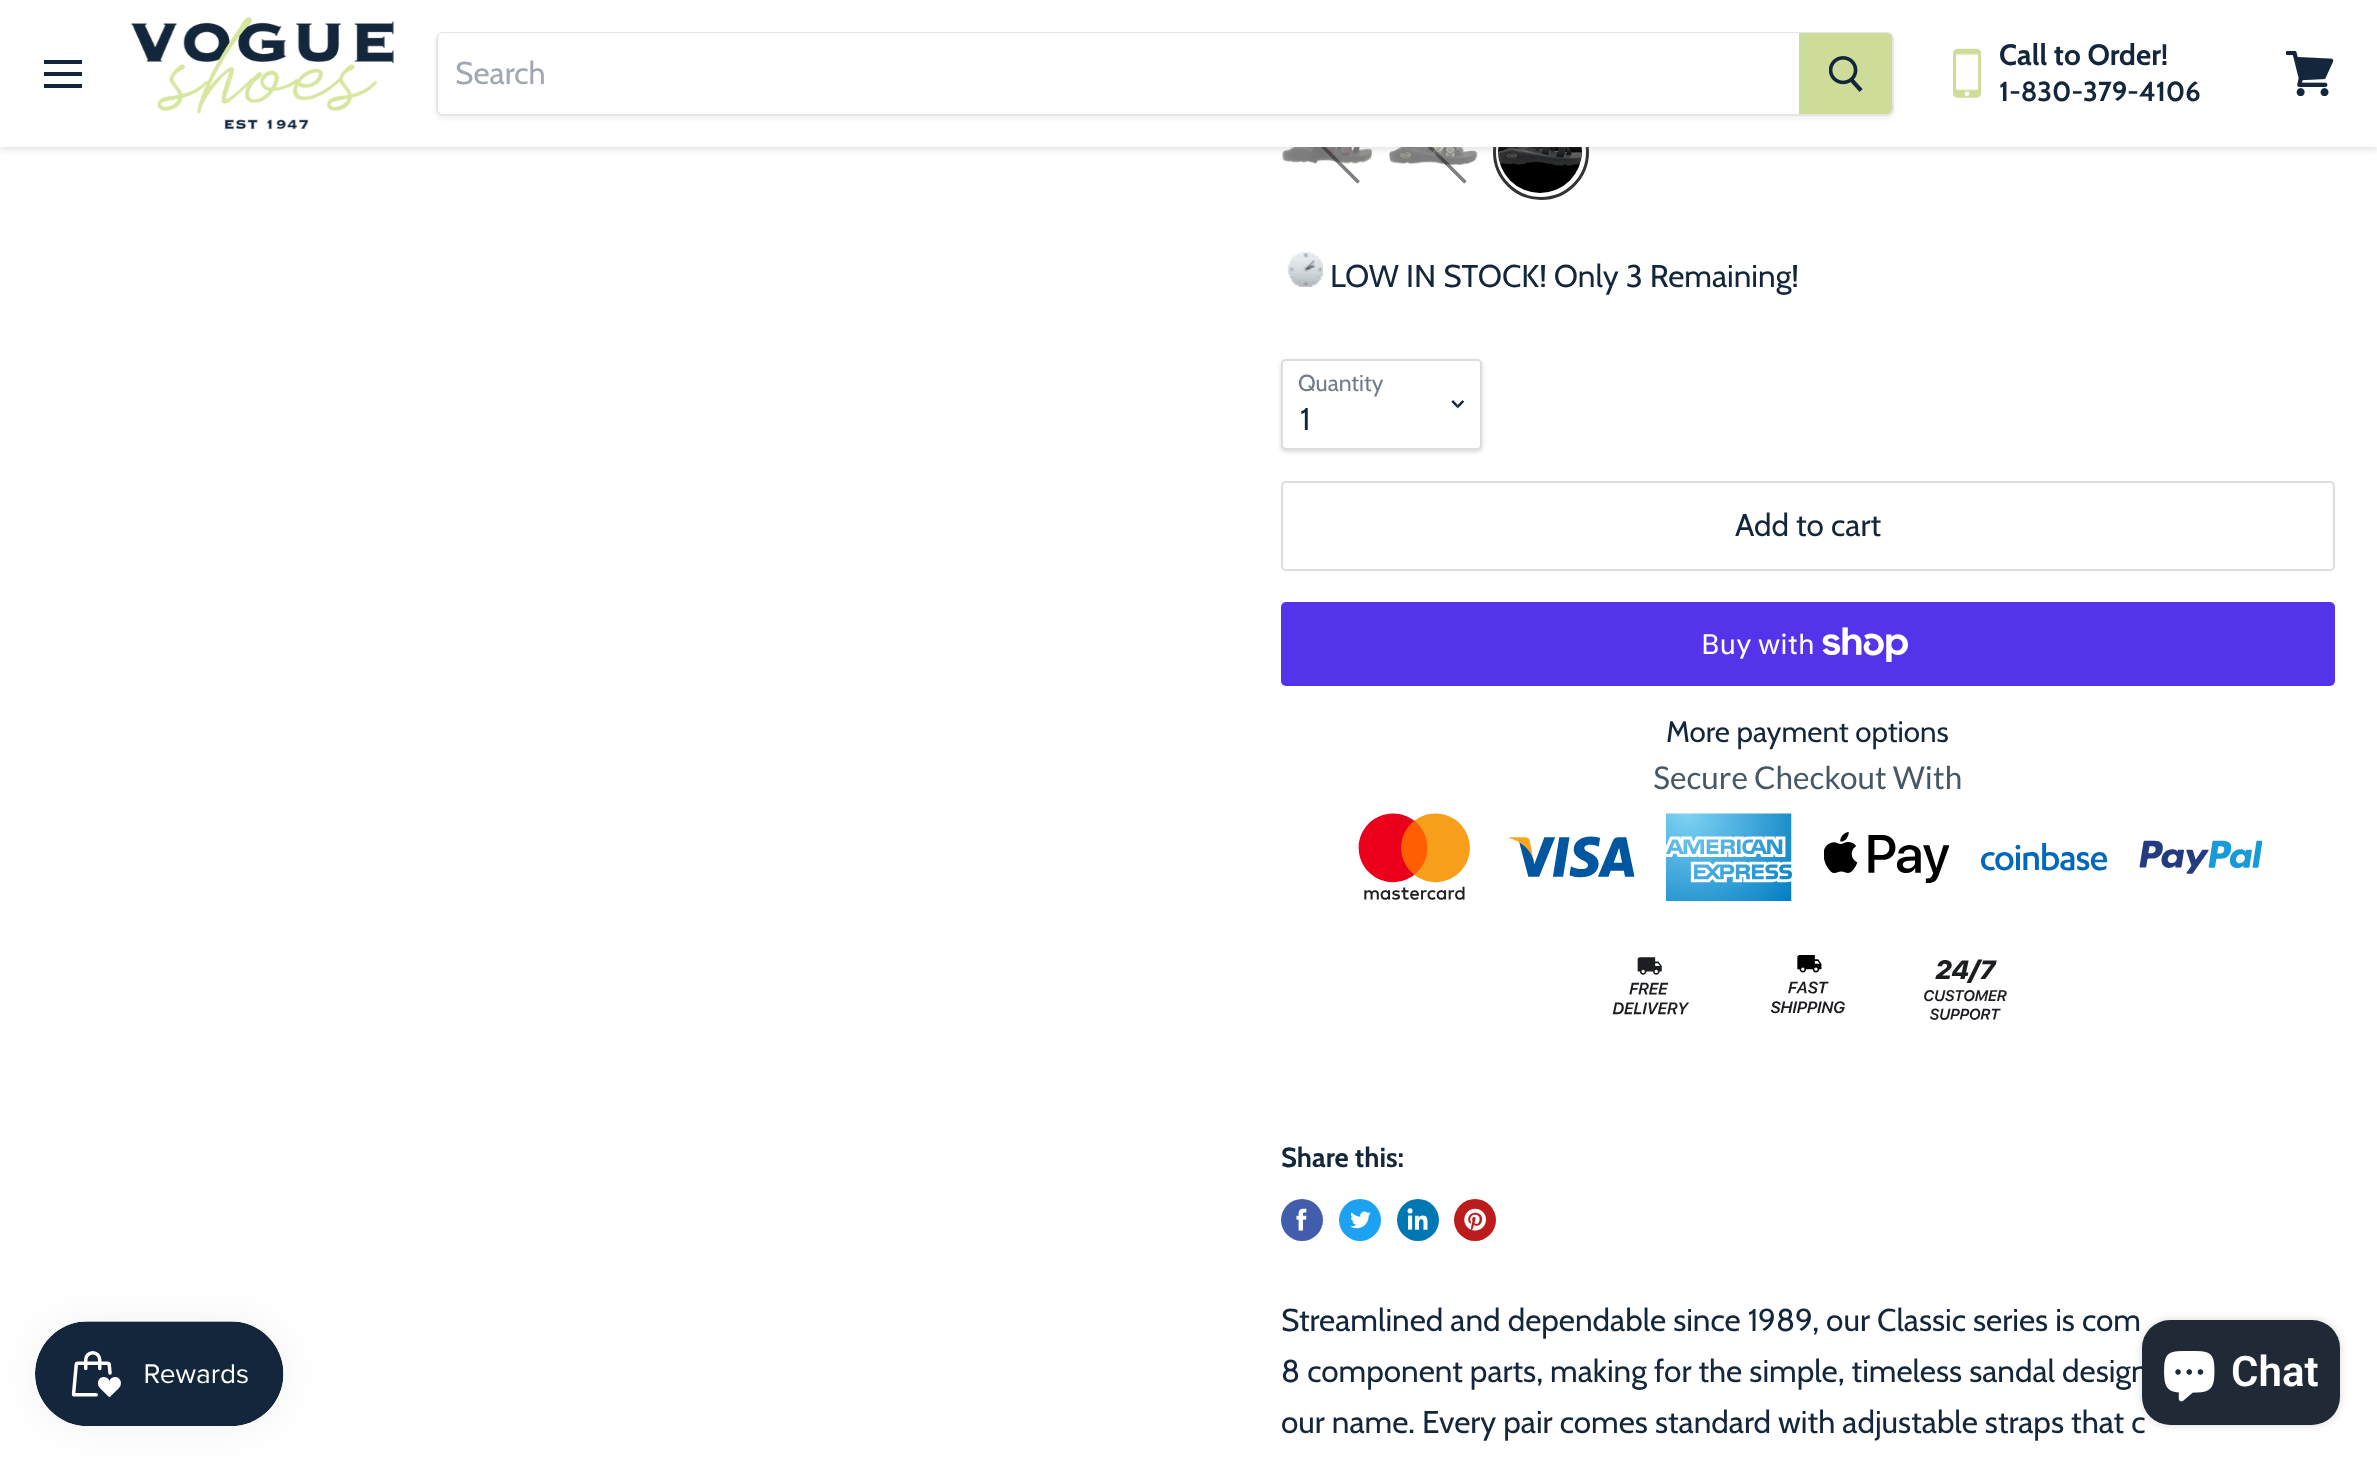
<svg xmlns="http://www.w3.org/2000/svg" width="2377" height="1461">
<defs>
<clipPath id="clip1"><path d="M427 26h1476v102h-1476zm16 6h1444c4 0 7 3 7 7v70c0 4-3 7-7 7h-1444c-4 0-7-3-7-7v-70c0-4 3-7 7-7z" clip-rule="evenodd"/></clipPath>
</defs>
<rect width="100%" height="100%" fill="#fff"/>
<image x="1321" y="147" width="39" height="37" href="media/7.png"/>
<image x="1282" y="147" width="90" height="17" href="media/6.png"/>
<image x="1427" y="147" width="40" height="37" href="media/9.png"/>
<image x="1389" y="147" width="89" height="19" href="media/8.png"/>
<rect x="1494.5" y="104.5" width="93" height="94" rx="46.5" fill="none" stroke="#333" stroke-width="3"/>
<circle cx="1540" cy="151" r="42" fill="#000"/>
<image x="1498" y="147" width="84" height="19" href="media/10.png"/>
<rect y="2" width="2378" height="147" fill="#7f7f7f40" filter="blur(3.5px)"/>
<rect width="2377" height="147" fill="#fff"/>
<rect x="44" y="60" width="38" height="4" fill="#13263b"/>
<rect x="44" y="72" width="38" height="4" fill="#13263b"/>
<rect x="44" y="84" width="38" height="4" fill="#13263b"/>
<image x="131" y="17" width="263" height="113" href="media/1.png"/>
<g clip-path="url(#clip1)">
<rect x="436" y="35" width="1458" height="84" rx="7" fill="#7f7f7f1c" filter="blur(2.5px)"/>
</g>
<rect x="437" y="33" width="1456" height="82" rx="6" fill="none" stroke="#7f7f7f33" stroke-width="2"/>
<path d="M443 33h1356v81h-1356c-3 0-5-2-5-5v-71c0-3 2-5 5-5z" fill="#fff"/>
<text x="455" y="84" style="font-family:Cabin;font-size:31.5px;fill:#a1a8b1">Search</text>
<path d="M1800 34h87c2 0 4 2 4 4v71c0 2-2 4-4 4h-87z" fill="#cddc99" stroke="#cddc99" stroke-width="2"/>
<image x="1829" y="56" width="34" height="36" href="media/2.png"/>
<image x="1953" y="48" width="28" height="50" href="media/3.png"/>
<text x="1999" y="65" style="font-family:Cabin;font-size:29.5px;font-weight:bold;fill:#13263b">Call to Order!</text>
<text x="1999" y="101" style="font-family:Cabin;font-size:27.5px;font-weight:bold;fill:#13263b">1-830-379-4106</text>
<image x="2286" y="51" width="48" height="45" href="media/4.png"/>
<rect x="35" y="1321" width="249" height="105" rx="52.5" fill="#0000000d" filter="blur(22px)"/>
<image x="35" y="1321" width="249" height="105" href="media/5.png"/>
<image x="1287" y="251" width="36" height="36" href="media/11.png"/>
<text x="1330" y="287" style="font-family:Cabin;font-size:31.5px;fill:#13263b">LOW IN STOCK! Only 3 Remaining!</text>
<rect x="1281" y="361" width="201" height="91" rx="5" fill="#00000026" filter="blur(2px)"/>
<rect x="1282" y="360" width="199" height="89" rx="4" fill="#fff" stroke="#ddd" stroke-width="2"/>
<text x="1298" y="391" style="font-family:Cabin;font-size:23px;fill:#717c89">Quantity</text>
<image x="1451" y="400" width="14" height="9" href="media/12.png"/>
<text x="1300" y="430" style="font-family:Cabin;font-size:31.5px;fill:#13263b">1</text>
<rect x="1282" y="482" width="1052" height="88" rx="4" fill="none" stroke="#ddd" stroke-width="2"/>
<text x="1735" y="536" style="font-family:Cabin;font-size:31.5px;fill:#13263b">Add to cart</text>
<rect x="1281" y="602" width="1054" height="84" rx="5" fill="#5433eb"/>
<text x="1701" y="654" style="font-family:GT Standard;font-size:28px;fill:#fff">Buy with</text>
<image x="1822" y="627" width="86" height="35" href="media/13.png"/>
<text x="1666" y="742" style="font-family:Cabin;font-size:29.5px;fill:#13263b">More payment options</text>
<image x="1358" y="765" width="905" height="255" href="media/14.png"/>
<text x="1281" y="1167" style="font-family:Cabin;font-size:27.5px;font-weight:bold;fill:#13263b">Share this:</text>
<circle cx="1302" cy="1220" r="21" fill="#425dab"/>
<image x="1296" y="1208" width="11" height="23" href="media/15.png"/>
<circle cx="1360" cy="1220" r="21" fill="#1da1f2"/>
<image x="1350" y="1211" width="21" height="18" href="media/16.png"/>
<circle cx="1418" cy="1220" r="21" fill="#0077b5"/>
<image x="1407" y="1208" width="21" height="22" href="media/17.png"/>
<circle cx="1475" cy="1220" r="21" fill="#bd1c1c"/>
<image x="1464" y="1208" width="22" height="23" href="media/18.png"/>
<text x="1281" y="1331" style="font-family:Cabin;font-size:31.5px;fill:#13263b">Streamlined and dependable since 1989, our Classic series is com</text>
<text x="1281" y="1382" style="font-family:Cabin;font-size:31.5px;fill:#13263b">8 component parts, making for the simple, timeless sandal design</text>
<text x="1281" y="1433" style="font-family:Cabin;font-size:31.5px;fill:#13263b">our name. Every pair comes standard with adjustable straps that c</text>
<rect x="2142" y="1320" width="198" height="105" rx="28" fill="#00000026" filter="blur(4.5px)"/>
<rect x="2142" y="1320" width="198" height="105" rx="28" fill="#202a36"/>
<image x="2164" y="1351" width="51" height="51" href="media/19.png"/>
<text x="2231" y="1386" style="font-family:Roboto;font-size:42px;font-weight:600;fill:#fff">Chat</text>
</svg>
